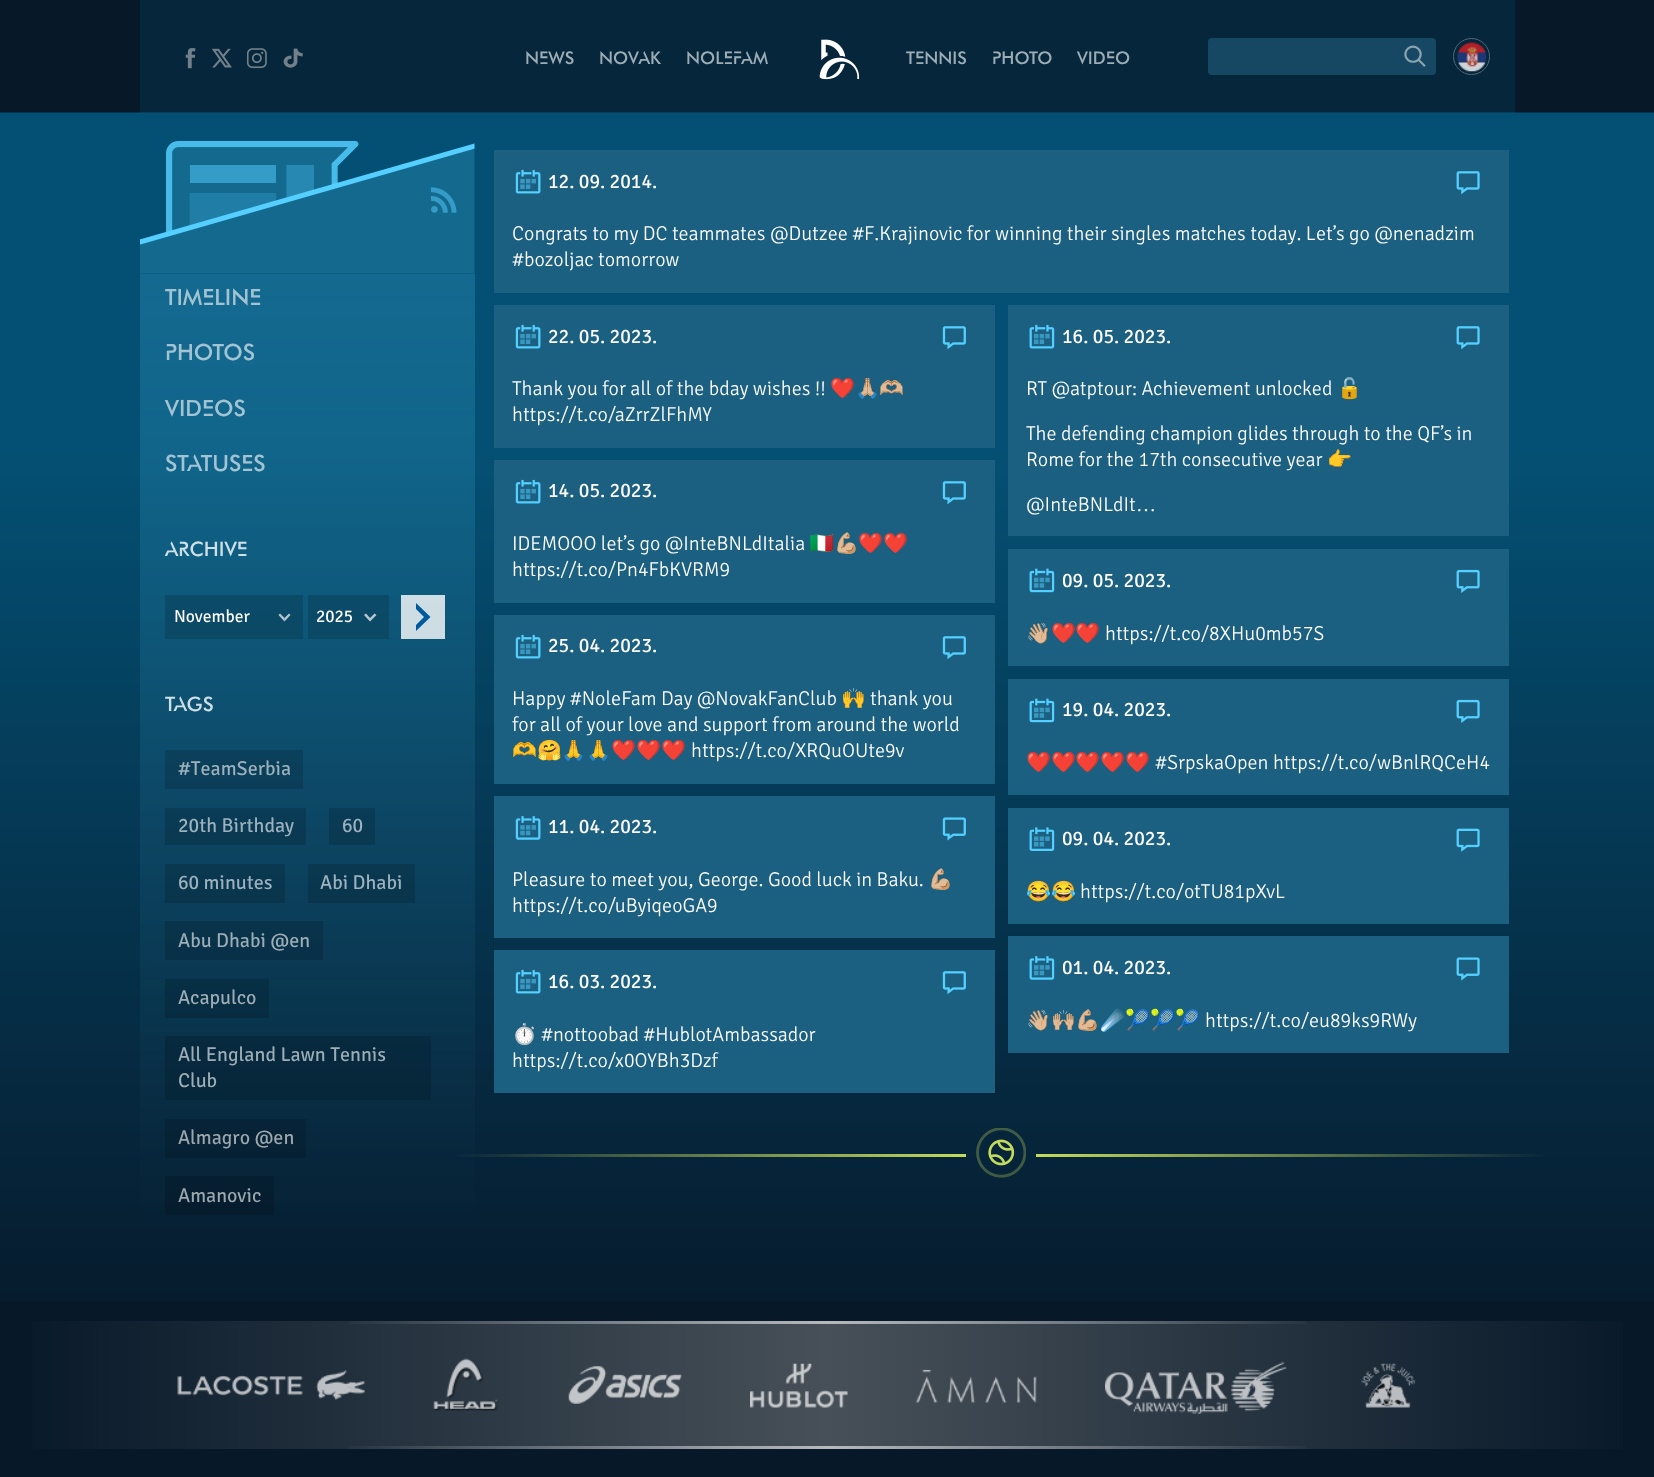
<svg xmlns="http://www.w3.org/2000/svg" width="1654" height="1477">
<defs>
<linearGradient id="g1" gradientUnits="userSpaceOnUse" x1="1036" y1="1155" x2="1550" y2="1155"><stop offset="0" stop-color="#c4da5c"/><stop offset="1" stop-color="#06243a"/></linearGradient>
<linearGradient id="g2" gradientUnits="userSpaceOnUse" x1="0" y1="1385" x2="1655" y2="1385"><stop offset="0" stop-color="#071829"/><stop offset="0.5" stop-color="#475058"/><stop offset="1" stop-color="#071829"/></linearGradient>
<linearGradient id="g3" gradientUnits="userSpaceOnUse" x1="0" y1="1323" x2="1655" y2="1323"><stop offset="0.2" stop-color="#fff" stop-opacity="0"/><stop offset="0.5" stop-color="#fff" stop-opacity="0.6"/><stop offset="0.8" stop-color="#fff" stop-opacity="0"/></linearGradient>
<linearGradient id="g4" gradientUnits="userSpaceOnUse" x1="0" y1="1448" x2="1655" y2="1448"><stop offset="0.2" stop-color="#fff" stop-opacity="0"/><stop offset="0.5" stop-color="#fff" stop-opacity="0.6"/><stop offset="0.8" stop-color="#fff" stop-opacity="0"/></linearGradient>
</defs>
<rect width="100%" height="100%" fill="#071829"/>
<image x="0" y="112" width="1654" height="1189" href="media/8.png"/>
<rect x="140" width="1375" height="113" fill="#00a5e41a"/>
<image x="185" y="48" width="11" height="21" href="media/1.png"/>
<image x="212" y="48" width="20" height="20" href="media/2.png"/>
<image x="246" y="48" width="21" height="21" href="media/3.png"/>
<image x="283" y="48" width="20" height="20" href="media/4.png"/>
<text x="525" y="64" style="font-family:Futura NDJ;font-size:17.5px;font-weight:500;fill:#9cadb6">NEWS</text>
<text x="599" y="64" style="font-family:Futura NDJ;font-size:17.5px;font-weight:500;fill:#9cadb6">NOVAK</text>
<text x="686" y="64" style="font-family:Futura NDJ;font-size:17.5px;font-weight:500;fill:#9cadb6">NOLEFAM</text>
<image x="819" y="39" width="41" height="41" href="media/5.png"/>
<text x="906" y="64" style="font-family:Futura NDJ;font-size:17.5px;font-weight:500;fill:#9cadb6">TENNIS</text>
<text x="992" y="64" style="font-family:Futura NDJ;font-size:17.5px;font-weight:500;fill:#9cadb6">PHOTO</text>
<text x="1077" y="64" style="font-family:Futura NDJ;font-size:17.5px;font-weight:500;fill:#9cadb6">VIDEO</text>
<rect x="1208" y="38" width="228" height="37" rx="4" fill="#164863"/>
<image x="1404" y="45" width="22" height="22" href="media/6.png"/>
<circle cx="1471.5" cy="56.5" r="18" fill="none" stroke="#516776"/>
<image x="1457" y="42" width="30" height="30" href="media/7.png"/>
<image x="140" y="141" width="335" height="133" href="media/9.png"/>
<image x="431" y="187" width="26" height="26" href="media/10.png"/>
<text x="165" y="305" style="font-family:Futura NDJ;font-size:22.5px;font-weight:500;fill:#a1c3d2">TIMELINE</text>
<text x="165" y="360" style="font-family:Futura NDJ;font-size:22.5px;font-weight:500;fill:#a1c3d2">PHOTOS</text>
<text x="165" y="416" style="font-family:Futura NDJ;font-size:22.5px;font-weight:500;fill:#a1c3d2">VIDEOS</text>
<text x="165" y="471" style="font-family:Futura NDJ;font-size:22.5px;font-weight:500;fill:#a1c3d2">STATUSES</text>
<text x="165" y="556" style="font-family:Futura NDJ;font-size:20px;font-weight:500;fill:#cfdfe6">ARCHIVE</text>
<rect x="165" y="595" width="138" height="44" fill="#00000026"/>
<text x="174" y="622" style="font-family:Signika Negative;font-size:17.5px;fill:#fff">November</text>
<path d="M290.5 615l-6 6.5v-3.5l4.5-4.5z" fill="#b6c9d2"/>
<path d="M284.5 621.5l-6-6.5l1.5-1.5l4.5 4.5z" fill="#ffffffb3"/>
<rect x="308" y="595" width="81" height="44" fill="#00000026"/>
<text x="316" y="622" style="font-family:Signika Negative;font-size:17.5px;fill:#fff">2025</text>
<path d="M376.5 615l-6.5 6.5v-3.5l4.5-4.5zm-6.5 6.5l-6-6.5l2-1.5l4 4.5z" fill="#b6c9d2"/>
<rect x="401" y="595" width="44" height="44" fill="#ffffffcc"/>
<path d="M430.5 617l-14.5-14v6l8 8l-8 8v6z" fill="#00599c"/>
<text x="165" y="711" style="font-family:Futura NDJ;font-size:20px;font-weight:500;fill:#cfdfe6">TAGS</text>
<rect x="165" y="750" width="138" height="39" fill="#00000026"/>
<text x="178" y="775" style="font-family:Signika Negative;font-size:20px;fill:#9db2bd">#TeamSerbia</text>
<rect x="165" y="808" width="141" height="37" fill="#00000026"/>
<text x="178" y="832" style="font-family:Signika Negative;font-size:20px;fill:#9db2bd">20th Birthday</text>
<rect x="329" y="808" width="46" height="37" fill="#00000026"/>
<text x="342" y="832" style="font-family:Signika Negative;font-size:20px;fill:#9db2bd">60</text>
<rect x="165" y="864" width="120" height="39" fill="#00000026"/>
<text x="178" y="889" style="font-family:Signika Negative;font-size:20px;fill:#9db2bd">60 minutes</text>
<rect x="308" y="864" width="107" height="39" fill="#00000026"/>
<text x="320" y="889" style="font-family:Signika Negative;font-size:20px;fill:#9db2bd">Abi Dhabi</text>
<rect x="165" y="921" width="158" height="39" fill="#00000026"/>
<text x="178" y="947" style="font-family:Signika Negative;font-size:20px;fill:#9cadb6">Abu Dhabi @en</text>
<rect x="165" y="979" width="104" height="39" fill="#00000026"/>
<text x="178" y="1004" style="font-family:Signika Negative;font-size:20px;fill:#9cadb6">Acapulco</text>
<rect x="165" y="1036" width="266" height="64" fill="#00000026"/>
<text x="178" y="1061" style="font-family:Signika Negative;font-size:20px;fill:#9cadb6">All England Lawn Tennis</text>
<text x="178" y="1087" style="font-family:Signika Negative;font-size:20px;fill:#9cadb6">Club</text>
<rect x="165" y="1119" width="141" height="39" fill="#00000026"/>
<text x="178" y="1144" style="font-family:Signika Negative;font-size:20px;fill:#9ca7ae">Almagro @en</text>
<rect x="165" y="1176" width="109" height="39" fill="#00000026"/>
<text x="178" y="1202" style="font-family:Signika Negative;font-size:20px;fill:#9ca7ae">Amanovic</text>
<rect x="494" y="150" width="1015" height="143" fill="#1c6081"/>
<image x="515" y="169" width="26" height="25" href="media/11.png"/>
<text x="548" y="188" style="font-family:Signika Negative;font-size:20px;fill:#fff">12. 09. 2014.</text>
<image x="1456" y="171" width="24" height="24" href="media/12.png"/>
<text x="512" y="240" style="font-family:Signika Negative;font-size:20px;font-weight:300;fill:#fff">Congrats to my DC teammates @Dutzee #F.Krajinovic for winning their singles matches today. Let’s go @nenadzim</text>
<text x="512" y="266" style="font-family:Signika Negative;font-size:20px;font-weight:300;fill:#fff">#bozoljac tomorrow</text>
<rect x="494" y="305" width="501" height="143" fill="#1c6081"/>
<image x="515" y="324" width="26" height="25" href="media/11.png"/>
<text x="548" y="343" style="font-family:Signika Negative;font-size:20px;fill:#fff">22. 05. 2023.</text>
<image x="942" y="326" width="24" height="24" href="media/13.png"/>
<text x="512" y="395" style="font-family:Signika Negative;font-size:20px;font-weight:300;fill:#fff">Thank you for all of the bday wishes !!</text>
<text x="830" y="395" style="font-family:Noto Color Emoji;font-size:20px;fill:#fff">❤️🙏🏼🫶🏼</text>
<text x="512" y="421" style="font-family:Signika Negative;font-size:20px;font-weight:300;fill:#fff">https://t.co/aZrrZlFhMY</text>
<rect x="1008" y="305" width="501" height="231" fill="#1c6081"/>
<image x="1029" y="324" width="26" height="25" href="media/14.png"/>
<text x="1062" y="343" style="font-family:Signika Negative;font-size:20px;fill:#fff">16. 05. 2023.</text>
<image x="1456" y="326" width="24" height="24" href="media/12.png"/>
<text x="1026" y="395" style="font-family:Signika Negative;font-size:20px;font-weight:300;fill:#fff">RT @atptour: Achievement unlocked</text>
<text x="1337" y="395" style="font-family:Noto Color Emoji;font-size:20px;fill:#fff">🔓</text>
<text x="1026" y="440" style="font-family:Signika Negative;font-size:20px;font-weight:300;fill:#fff">The defending champion glides through to the QF’s in</text>
<text x="1026" y="466" style="font-family:Signika Negative;font-size:20px;font-weight:300;fill:#fff">Rome for the 17th consecutive year</text>
<text x="1327" y="466" style="font-family:Noto Color Emoji;font-size:20px;fill:#fff">👉</text>
<text x="1026" y="511" style="font-family:Signika Negative;font-size:20px;font-weight:300;fill:#fff">@InteBNLdIt</text>
<text x="1136" y="511" style="font-family:Liberation Serif;font-size:20px;fill:#fff">…</text>
<rect x="494" y="460" width="501" height="143" fill="#1c6081"/>
<image x="515" y="479" width="26" height="25" href="media/11.png"/>
<text x="548" y="497" style="font-family:Signika Negative;font-size:20px;fill:#fff">14. 05. 2023.</text>
<image x="942" y="481" width="24" height="24" href="media/13.png"/>
<text x="512" y="550" style="font-family:Signika Negative;font-size:20px;font-weight:300;fill:#fff">IDEMOOO let’s go @InteBNLdItalia</text>
<text x="809" y="550" style="font-family:Noto Color Emoji;font-size:20px;fill:#fff">🇮🇹💪🏼❤️❤️</text>
<text x="512" y="576" style="font-family:Signika Negative;font-size:20px;font-weight:300;fill:#fff">https://t.co/Pn4FbKVRM9</text>
<rect x="1008" y="549" width="501" height="117" fill="#1c6081"/>
<image x="1029" y="568" width="26" height="25" href="media/15.png"/>
<text x="1062" y="587" style="font-family:Signika Negative;font-size:20px;fill:#fff">09. 05. 2023.</text>
<image x="1456" y="569" width="24" height="24" href="media/16.png"/>
<text x="1026" y="640" style="font-family:Noto Color Emoji;font-size:20px;fill:#fff">👋🏼❤️❤️</text>
<text x="1105" y="640" style="font-family:Signika Negative;font-size:20px;font-weight:300;fill:#fff">https://t.co/8XHu0mb57S</text>
<rect x="494" y="615" width="501" height="169" fill="#1c6081"/>
<image x="515" y="634" width="26" height="25" href="media/11.png"/>
<text x="548" y="652" style="font-family:Signika Negative;font-size:20px;fill:#fff">25. 04. 2023.</text>
<image x="942" y="636" width="24" height="24" href="media/13.png"/>
<text x="512" y="705" style="font-family:Signika Negative;font-size:20px;font-weight:300;fill:#fff">Happy #NoleFam Day @NovakFanClub</text>
<text x="841" y="705" style="font-family:Noto Color Emoji;font-size:20px;fill:#fff">🙌</text>
<text x="870" y="705" style="font-family:Signika Negative;font-size:20px;font-weight:300;fill:#fff">thank you</text>
<text x="512" y="731" style="font-family:Signika Negative;font-size:20px;font-weight:300;fill:#fff">for all of your love and support from around the world</text>
<text x="512" y="757" style="font-family:Noto Color Emoji;font-size:20px;fill:#fff">🫶🤗🙏🙏❤️❤️❤️</text>
<text x="691" y="757" style="font-family:Signika Negative;font-size:20px;font-weight:300;fill:#fff">https://t.co/XRQuOUte9v</text>
<rect x="1008" y="679" width="501" height="116" fill="#1c6081"/>
<image x="1029" y="698" width="26" height="25" href="media/15.png"/>
<text x="1062" y="716" style="font-family:Signika Negative;font-size:20px;fill:#fff">19. 04. 2023.</text>
<image x="1456" y="699" width="24" height="24" href="media/16.png"/>
<text x="1026" y="769" style="font-family:Noto Color Emoji;font-size:20px;fill:#fff">❤️❤️❤️❤️❤️</text>
<text x="1155" y="769" style="font-family:Signika Negative;font-size:20px;font-weight:300;fill:#fff">#SrpskaOpen https://t.co/wBnlRQCeH4</text>
<rect x="494" y="796" width="501" height="142" fill="#1c6081"/>
<image x="515" y="816" width="26" height="24" href="media/17.png"/>
<text x="548" y="833" style="font-family:Signika Negative;font-size:20px;fill:#fff">11. 04. 2023.</text>
<image x="942" y="817" width="24" height="24" href="media/18.png"/>
<text x="512" y="886" style="font-family:Signika Negative;font-size:20px;font-weight:300;fill:#fff">Pleasure to meet you, George. Good luck in Baku.</text>
<text x="928" y="886" style="font-family:Noto Color Emoji;font-size:20px;fill:#fff">💪🏼</text>
<text x="512" y="912" style="font-family:Signika Negative;font-size:20px;font-weight:300;fill:#fff">https://t.co/uByiqeoGA9</text>
<rect x="1008" y="808" width="501" height="116" fill="#1c6081"/>
<image x="1029" y="827" width="26" height="24" href="media/19.png"/>
<text x="1062" y="845" style="font-family:Signika Negative;font-size:20px;fill:#fff">09. 04. 2023.</text>
<image x="1456" y="828" width="24" height="24" href="media/20.png"/>
<text x="1026" y="898" style="font-family:Noto Color Emoji;font-size:20px;fill:#fff">😂😂</text>
<text x="1080" y="898" style="font-family:Signika Negative;font-size:20px;font-weight:300;fill:#fff">https://t.co/otTU81pXvL</text>
<rect x="494" y="950" width="501" height="143" fill="#1c6081"/>
<image x="515" y="969" width="26" height="25" href="media/11.png"/>
<text x="548" y="988" style="font-family:Signika Negative;font-size:20px;fill:#fff">16. 03. 2023.</text>
<image x="942" y="971" width="24" height="24" href="media/13.png"/>
<text x="512" y="1041" style="font-family:Noto Color Emoji;font-size:20px;fill:#fff">⏱️</text>
<text x="541" y="1041" style="font-family:Signika Negative;font-size:20px;font-weight:300;fill:#fff">#nottoobad #HublotAmbassador</text>
<text x="512" y="1067" style="font-family:Signika Negative;font-size:20px;font-weight:300;fill:#fff">https://t.co/x0OYBh3Dzf</text>
<rect x="1008" y="936" width="501" height="117" fill="#1c6081"/>
<image x="1029" y="956" width="26" height="24" href="media/21.png"/>
<text x="1062" y="974" style="font-family:Signika Negative;font-size:20px;fill:#fff">01. 04. 2023.</text>
<image x="1456" y="957" width="24" height="24" href="media/22.png"/>
<text x="1026" y="1027" style="font-family:Noto Color Emoji;font-size:20px;fill:#fff">👋🏼🙌🏼💪🏼☄️🎾🎾🎾</text>
<text x="1205" y="1027" style="font-family:Signika Negative;font-size:20px;font-weight:300;fill:#fff">https://t.co/eu89ks9RWy</text>
<image x="976" y="1128" width="50" height="50" href="media/23.png"/>
<rect x="1036" y="1154" width="514" height="3" fill="url(#g1)"/>
<rect x="32" y="1321" width="1591" height="128" fill="url(#g2)"/>
<rect x="349" y="1321" width="957" height="3" fill="url(#g3)"/>
<image x="177" y="1370" width="188" height="30" href="media/24.png"/>
<image x="433" y="1358" width="66" height="53" href="media/25.png"/>
<image x="568" y="1366" width="114" height="38" href="media/26.png"/>
<image x="750" y="1363" width="98" height="45" href="media/27.png"/>
<image x="916" y="1369" width="121" height="34" href="media/28.png"/>
<image x="1105" y="1362" width="182" height="52" href="media/29.png"/>
<image x="1361" y="1363" width="55" height="45" href="media/30.png"/>
<rect x="349" y="1446" width="957" height="3" fill="url(#g4)"/>
</svg>
